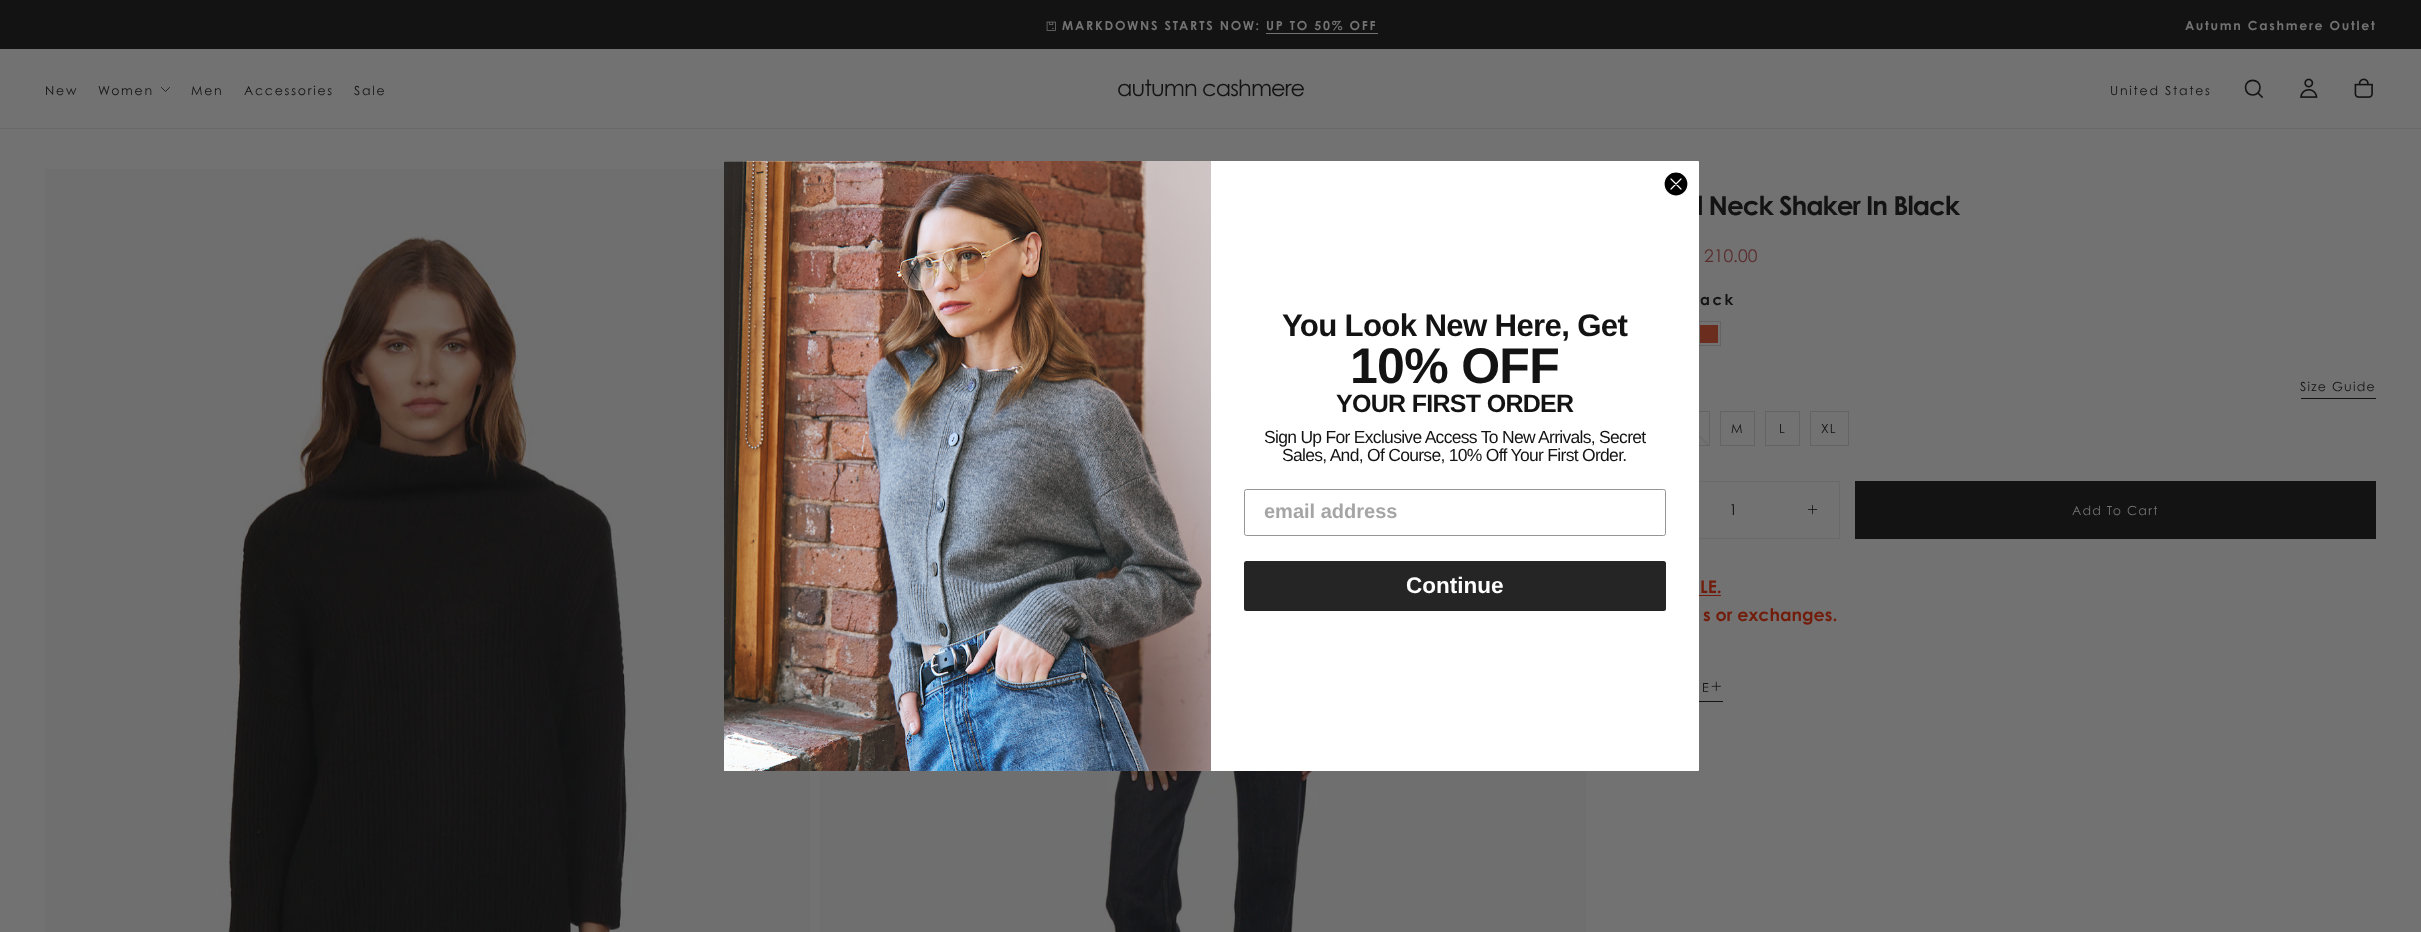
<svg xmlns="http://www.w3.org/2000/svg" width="2421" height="932">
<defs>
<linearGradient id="g1" gradientUnits="userSpaceOnUse" x1="1676" y1="445" x2="1709" y2="413"><stop offset="0.47" stop-color="#131313" stop-opacity="0"/><stop offset="0.5" stop-color="#131313" stop-opacity="0.1"/><stop offset="0.53" stop-color="#131313" stop-opacity="0"/></linearGradient>
</defs>
<rect width="100%" height="100%" fill="#727272"/>
<rect width="2421" height="49" fill="#131313"/>
<image x="1046" y="21" width="10" height="10" href="media/1.png"/>
<text x="1062" y="30" style="font-family:Century Gothic;font-size:12.5px;font-weight:bold;letter-spacing:1.75px;fill:#727272">MARKDOWNS STARTS NOW: UP TO 50% OFF</text>
<rect x="1266" y="33" width="112" height="1" fill="#727272"/>
<text x="2185" y="30" style="font-family:Century Gothic;font-size:12.5px;font-weight:bold;letter-spacing:1.75px;fill:#727272">Autumn Cashmere Outlet</text>
<rect y="128" width="2421" height="1" fill="#686868"/>
<text x="45" y="95" style="font-family:Century Gothic;font-size:12.5px;letter-spacing:1.75px;fill:#131313">New</text>
<text x="98" y="95" style="font-family:Century Gothic;font-size:12.5px;letter-spacing:1.75px;fill:#131313">Women</text>
<path d="M169.5 87.5l-4 4l-4-4" fill="none" stroke="#131313" stroke-width="0.8" stroke-linecap="square"/>
<text x="191" y="95" style="font-family:Century Gothic;font-size:12.5px;letter-spacing:1.75px;fill:#131313">Men</text>
<text x="244" y="95" style="font-family:Century Gothic;font-size:12.5px;letter-spacing:1.75px;fill:#131313">Accessories</text>
<text x="354" y="95" style="font-family:Century Gothic;font-size:12.5px;letter-spacing:1.75px;fill:#131313">Sale</text>
<text x="1117" y="96" style="font-family:Century Gothic;font-size:22.5px;letter-spacing:-0.9px;fill:#131313">autumn cashmere</text>
<text x="2110" y="95" style="font-family:Century Gothic;font-size:12.5px;letter-spacing:1.75px;fill:#131313">United States</text>
<path d="M2262 97l-4-4m2-5.5c0 10-14.5 10-14.5 0c0-9.5 14.5-9.5 14.5 0z" fill="none" stroke="#131313" stroke-width="1.6" stroke-linecap="square"/>
<image x="2300" y="78" width="18" height="20" href="media/2.png"/>
<image x="2354" y="78" width="19" height="20" href="media/3.png"/>
<image x="45" y="169" width="765" height="763" href="media/5.png"/>
<text x="1697" y="215" style="font-family:Century Gothic;font-size:26.25px;font-weight:bold;letter-spacing:-1.05px;fill:#131313">l Neck Shaker In Black</text>
<rect x="1696.5" y="321.5" width="24" height="24" fill="none" stroke="#646464"/>
<rect x="1675.5" y="411.5" width="34" height="34" fill="none" stroke="#646464"/>
<rect x="1626.5" y="481.5" width="213" height="57" fill="none" stroke="#6a6a6a"/>
<rect x="724" y="161" width="975" height="610" rx="1" fill="#fff"/>
<circle cx="1676" cy="184" r="12" fill="#000" stroke="#fff" stroke-width="1.2"/>
<path d="M1671 179l10 10m-10 0l10-10z" fill="none" stroke="#fff" stroke-width="1.2" stroke-linecap="round" stroke-linejoin="round"/>
<image x="724" y="161" width="487" height="610" href="media/4.png"/>
<text x="1282" y="336" style="font-family:Liberation Sans;font-size:31.25px;font-weight:bold;letter-spacing:-0.7px;fill:#131313">You Look New Here, Get</text>
<text x="1350" y="383" style="font-family:Liberation Sans;font-size:50px;font-weight:bold;letter-spacing:-0.7px;fill:#131313">10% OFF</text>
<text x="1336" y="412" style="font-family:Liberation Sans;font-size:25px;font-weight:bold;letter-spacing:-0.7px;fill:#131313">YOUR FIRST ORDER</text>
<text x="1264" y="443" style="font-family:Liberation Sans;font-size:17.5px;letter-spacing:-0.7px;fill:#131313">Sign Up For Exclusive Access To New Arrivals, Secret</text>
<text x="1282" y="461" style="font-family:Liberation Sans;font-size:17.5px;letter-spacing:-0.7px;fill:#131313">Sales, And, Of Course, 10% Off Your First Order.</text>
<rect x="1244.5" y="489.5" width="421" height="46" rx="2" fill="none" stroke="#949596"/>
<text x="1264" y="518" style="font-family:Liberation Sans;font-size:20px;font-weight:bold;fill:#a5a5a5">email address</text>
<rect x="1244" y="561" width="422" height="50" rx="2.5" fill="#252525"/>
<text x="1406" y="593" style="font-family:Liberation Sans;font-size:22.5px;font-weight:bold;fill:#fff">Continue</text>
<image x="820" y="771" width="766" height="161" href="media/6.png"/>
<text x="1704" y="262" style="font-family:Century Gothic;font-size:17.5px;fill:#5a2c2c">210.00</text>
<text x="1700" y="305" style="font-family:Century Gothic;font-size:15px;font-weight:bold;letter-spacing:2.5px;fill:#131313">ack</text>
<rect x="1700" y="325" width="18" height="18" fill="#6b2d1d"/>
<text x="2300" y="391" style="font-family:Century Gothic;font-size:12.5px;letter-spacing:1.25px;fill:#131313">Size Guide</text>
<rect x="2301" y="398" width="75" height="1" fill="#131313"/>
<rect x="1699" y="435" width="10" height="10" fill="url(#g1)"/>
<rect x="1720.5" y="411.5" width="34" height="34" fill="none" stroke="#646464"/>
<text x="1731" y="433" style="font-family:Century Gothic;font-size:12.5px;letter-spacing:1.25px;fill:#131313">M</text>
<rect x="1765.5" y="411.5" width="34" height="34" fill="none" stroke="#646464"/>
<text x="1779" y="433" style="font-family:Century Gothic;font-size:12.5px;letter-spacing:1.25px;fill:#131313">L</text>
<rect x="1810.5" y="411.5" width="38" height="34" fill="none" stroke="#646464"/>
<text x="1821" y="433" style="font-family:Century Gothic;font-size:12.5px;letter-spacing:1.25px;fill:#131313">XL</text>
<text x="1729" y="515" style="font-family:Century Gothic;font-size:15px;fill:#131313">1</text>
<image x="1807" y="505" width="11" height="10" href="media/7.png"/>
<rect x="1855" y="481" width="521" height="58" fill="#131313"/>
<text x="2072" y="515" style="font-family:Century Gothic;font-size:12.5px;letter-spacing:1.25px;fill:#727272">Add To Cart</text>
<text x="1700" y="593" style="font-family:Century Gothic;font-size:17.5px;font-weight:bold;fill:#721d0c">LE.</text>
<rect x="1699" y="595" width="22" height="1" fill="#721d0c"/>
<text x="1703" y="621" style="font-family:Century Gothic;font-size:17.5px;font-weight:bold;fill:#721d0c">s or exchanges.</text>
<text x="1702" y="692" style="font-family:Century Gothic;font-size:12.5px;letter-spacing:1.25px;fill:#131313">E</text>
<image x="1711" y="681" width="10" height="10" href="media/8.png"/>
<rect x="1699" y="701" width="24" height="1" fill="#131313"/>
</svg>
